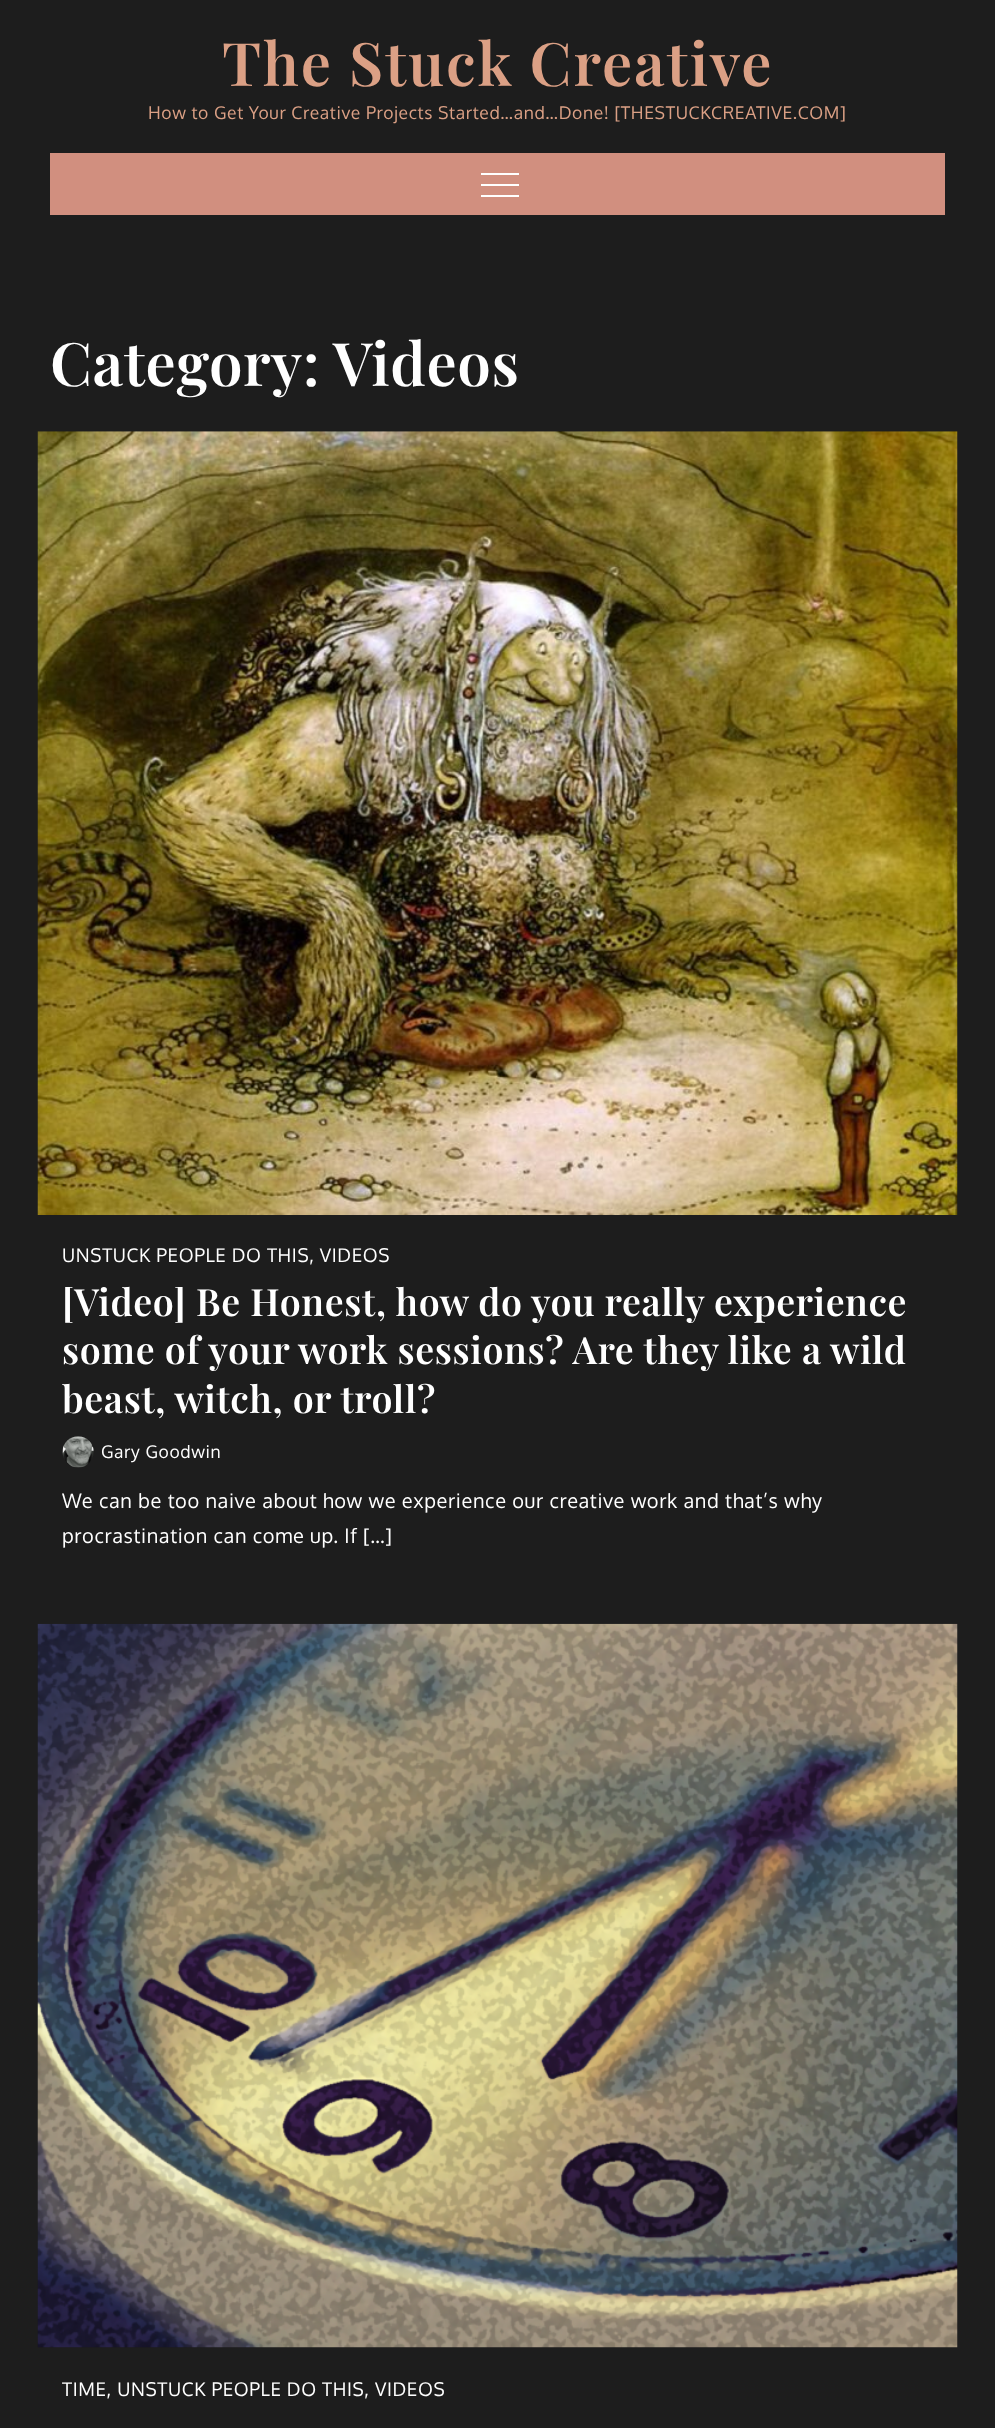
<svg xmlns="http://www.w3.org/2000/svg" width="995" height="2428">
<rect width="100%" height="100%" fill="#1d1d1d"/>
<text x="222" y="86" style="font-family:Playfair Display;font-size:60px;font-weight:600;letter-spacing:1.9px;fill:#dba085">The Stuck Creative</text>
<text x="148" y="119" style="font-family:Oxygen;font-size:17.5px;letter-spacing:0.62px;fill:#dba085">How to Get Your Creative Projects Started…and…Done! [THESTUCKCREATIVE.COM]</text>
<rect x="50" y="153" width="895" height="62" fill="#d18f7f"/>
<rect x="481" y="173" width="38" height="2" fill="#fff"/>
<rect x="481" y="184" width="38" height="2" fill="#fff"/>
<rect x="481" y="195" width="38" height="2" fill="#fff"/>
<text x="50" y="386" style="font-family:Playfair Display;font-size:60px;font-weight:600;letter-spacing:0.62px;fill:#fff">Category:</text>
<text x="333" y="386" style="font-family:Playfair Display;font-size:60px;font-weight:600;letter-spacing:0.62px;fill:#fff">Videos</text>
<image x="37" y="431" width="921" height="784" href="media/1.png"/>
<text x="62" y="1262" style="font-family:Oxygen;font-size:18.75px;letter-spacing:0.62px;fill:#fff">UNSTUCK PEOPLE DO THIS, VIDEOS</text>
<text x="62" y="1316" style="font-family:Playfair Display;font-size:37.5px;font-weight:600;letter-spacing:0.62px;fill:#fff">[Video] Be Honest, how do you really experience</text>
<text x="62" y="1364" style="font-family:Playfair Display;font-size:37.5px;font-weight:600;letter-spacing:0.62px;fill:#fff">some of your work sessions? Are they like a wild</text>
<text x="62" y="1413" style="font-family:Playfair Display;font-size:37.5px;font-weight:600;letter-spacing:0.62px;fill:#fff">beast, witch, or troll?</text>
<image x="62" y="1436" width="32" height="32" href="media/2.png"/>
<text x="101" y="1458" style="font-family:Oxygen;font-size:17.5px;letter-spacing:0.62px;fill:#fff">Gary Goodwin</text>
<text x="62" y="1508" style="font-family:Oxygen;font-size:20px;letter-spacing:0.62px;fill:#fff">We can be too naive about how we experience our creative work and that’s why</text>
<text x="62" y="1543" style="font-family:Oxygen;font-size:20px;letter-spacing:0.62px;fill:#fff">procrastination can come up. If […]</text>
<image x="37" y="1623" width="921" height="725" href="media/3.png"/>
<text x="62" y="2396" style="font-family:Oxygen;font-size:18.75px;letter-spacing:0.62px;fill:#fff">TIME, UNSTUCK PEOPLE DO THIS, VIDEOS</text>
</svg>
